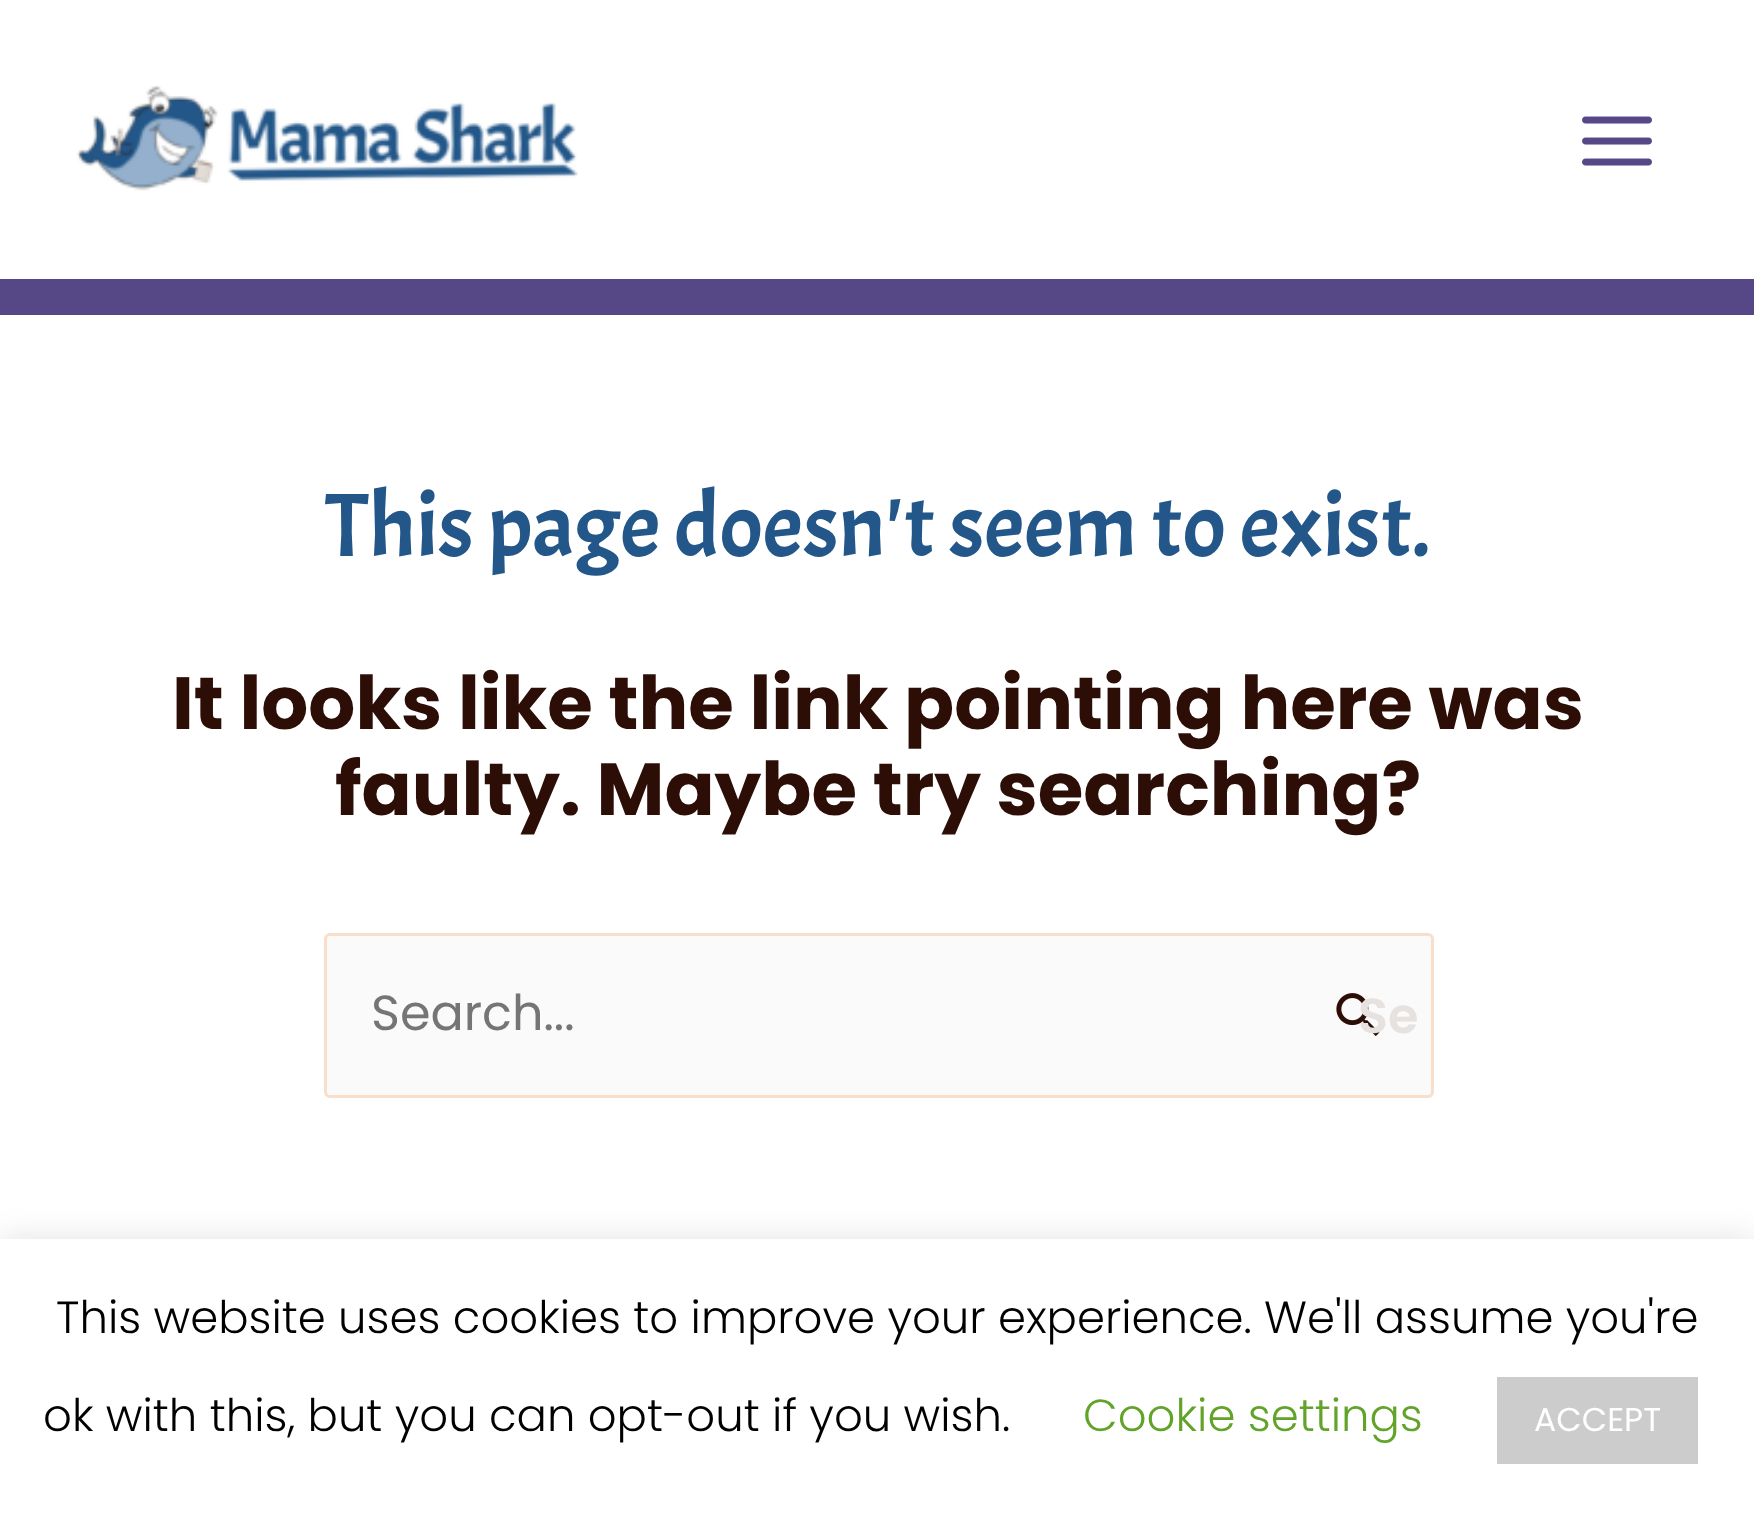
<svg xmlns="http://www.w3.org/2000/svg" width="1754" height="1513">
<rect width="100%" height="100%" fill="#fff"/>
<rect y="279" width="1754" height="36" fill="#564787"/>
<image x="76" y="85" width="502" height="106" href="media/1.png"/>
<image x="1582" y="116" width="70" height="50" href="media/2.png"/>
<text x="325" y="556" style="font-family:Acme;font-size:90px;fill:#235789">This page doesn't seem to exist.</text>
<text x="172" y="729" style="font-family:Poppins;font-size:73.9px;font-weight:bold;fill:#2c0e06">It looks like the link pointing here was</text>
<text x="335" y="815" style="font-family:Poppins;font-size:73.9px;font-weight:bold;fill:#2c0e06">faulty. Maybe try searching?</text>
<rect x="325.5" y="934.5" width="1107" height="162" rx="4.5" fill="#fafafa" stroke="#f9dec9" stroke-width="3"/>
<text x="371" y="1030" style="font-family:Poppins;font-size:49.25px;fill:#757575">Search...</text>
<image x="1336" y="993" width="44" height="43" href="media/3.png"/>
<text x="1358" y="1033" style="font-family:Poppins;font-size:49.25px;font-weight:600;fill:#e5e2e0">Se</text>
<rect y="1236" width="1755" height="276" fill="#acabab4d" filter="blur(15px)"/>
<rect y="1239" width="1754" height="274" fill="#fff"/>
<text x="56" y="1333" style="font-family:Poppins;font-size:45px;font-weight:300;fill:#000">This website uses cookies to improve your experience. We'll assume you're</text>
<text x="43" y="1431" style="font-family:Poppins;font-size:45px;font-weight:300;fill:#000">ok with this, but you can opt-out if you wish.</text>
<text x="1083" y="1431" style="font-family:Poppins;font-size:45px;font-weight:300;fill:#62a329">Cookie settings</text>
<rect x="1497" y="1377" width="201" height="87" fill="#ccc"/>
<text x="1534" y="1431" style="font-family:Poppins;font-size:33px;fill:#fff">ACCEPT</text>
</svg>
